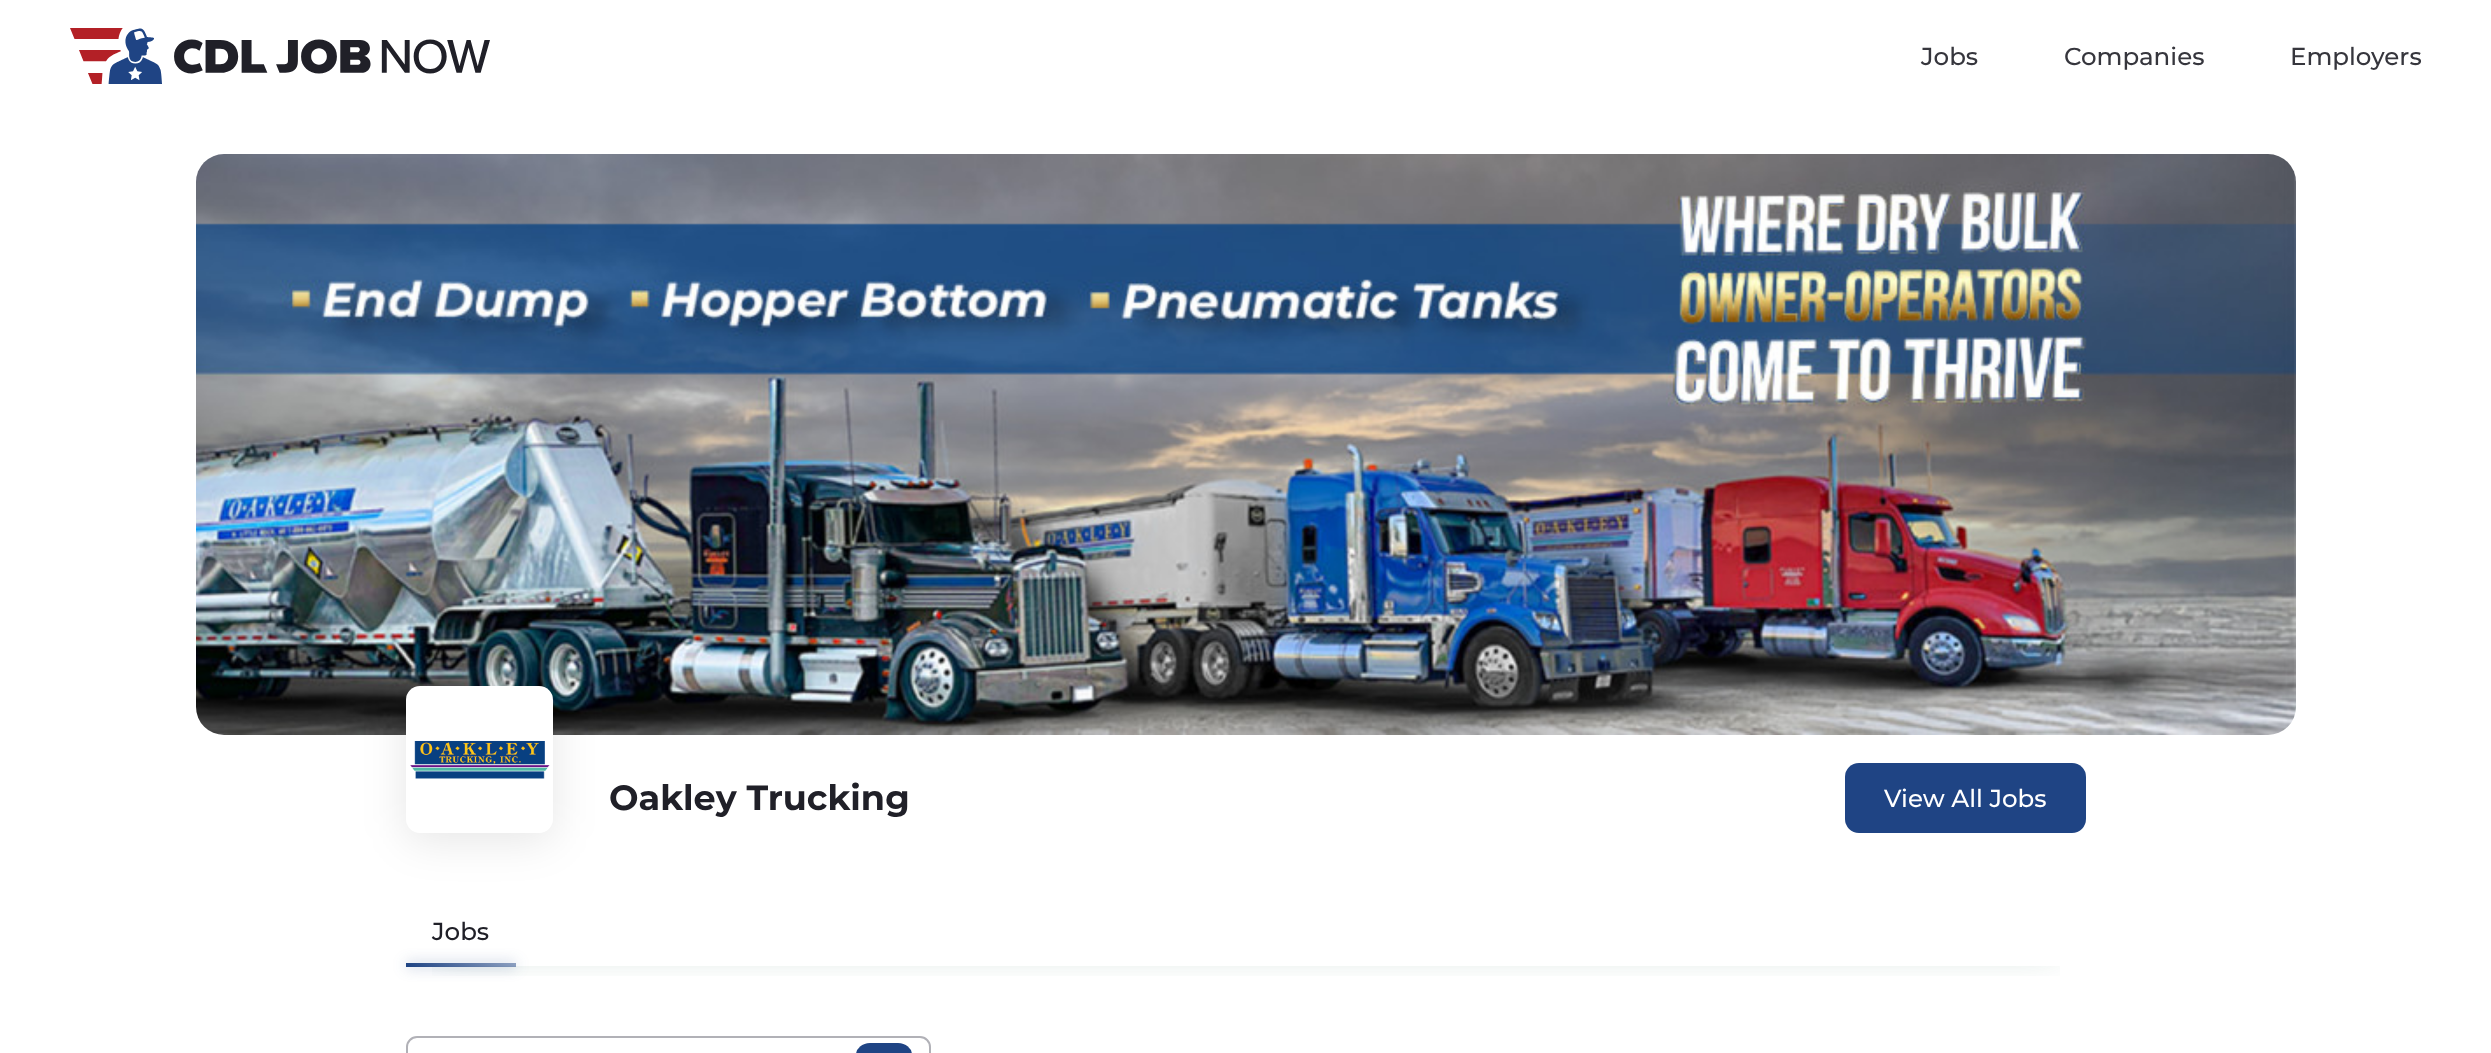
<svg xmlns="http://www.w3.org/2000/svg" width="2491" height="1053">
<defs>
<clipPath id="clip1"><rect x="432" y="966" width="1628" height="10"/></clipPath>
<clipPath id="clip2"><path d="M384 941h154v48h-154zm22 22h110v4h-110z" clip-rule="evenodd"/></clipPath>
<linearGradient id="g1" gradientUnits="userSpaceOnUse" x1="447" y1="989" x2="476" y2="939"><stop offset="0" stop-color="#1f4484"/><stop offset="1" stop-color="#1f4484" stop-opacity="0.5"/></linearGradient>
</defs>
<rect width="100%" height="100%" fill="#fff"/>
<image x="70" y="28" width="420" height="56" href="media/1.png"/>
<text x="1921" y="65" style="font-family:Montserrat;font-size:24.5px;font-weight:500;fill:#36363d">Jobs</text>
<text x="2064" y="65" style="font-family:Montserrat;font-size:24.5px;font-weight:500;fill:#36363d">Companies</text>
<text x="2290" y="65" style="font-family:Montserrat;font-size:24.5px;font-weight:500;fill:#36363d">Employers</text>
<image x="196" y="154" width="2100" height="581" href="media/2.png"/>
<rect x="406" y="693" width="147" height="147" rx="14" fill="#0000001a" filter="blur(22px)"/>
<rect x="406" y="686" width="147" height="147" rx="14" fill="#fff"/>
<image x="410" y="740" width="140" height="39" href="media/3.png"/>
<text x="609" y="810" style="font-family:Montserrat;font-size:35px;font-weight:bold;fill:#202028">Oakley Trucking</text>
<rect x="1845" y="763" width="241" height="70" rx="14" fill="#1f4484"/>
<text x="1884" y="807" style="font-family:Montserrat;font-size:24.5px;font-weight:500;fill:#fff">View All Jobs</text>
<g clip-path="url(#clip1)">
<rect x="434" y="933" width="1624" height="14" fill="#014f3266" filter="blur(18.5px)"/>
</g>
<text x="432" y="940" style="font-family:Montserrat;font-size:24.5px;font-weight:500;fill:#202028">Jobs</text>
<g clip-path="url(#clip2)">
<rect x="406" y="963" width="110" height="4" fill="#1f448466" filter="blur(7px)"/>
</g>
<rect x="406" y="963" width="110" height="4" fill="url(#g1)"/>
<rect x="407" y="1037" width="523" height="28" rx="10" fill="none" stroke="#b1b1b7" stroke-width="2"/>
<rect x="856" y="1043" width="56" height="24" rx="14" fill="#1f4484"/>
</svg>
